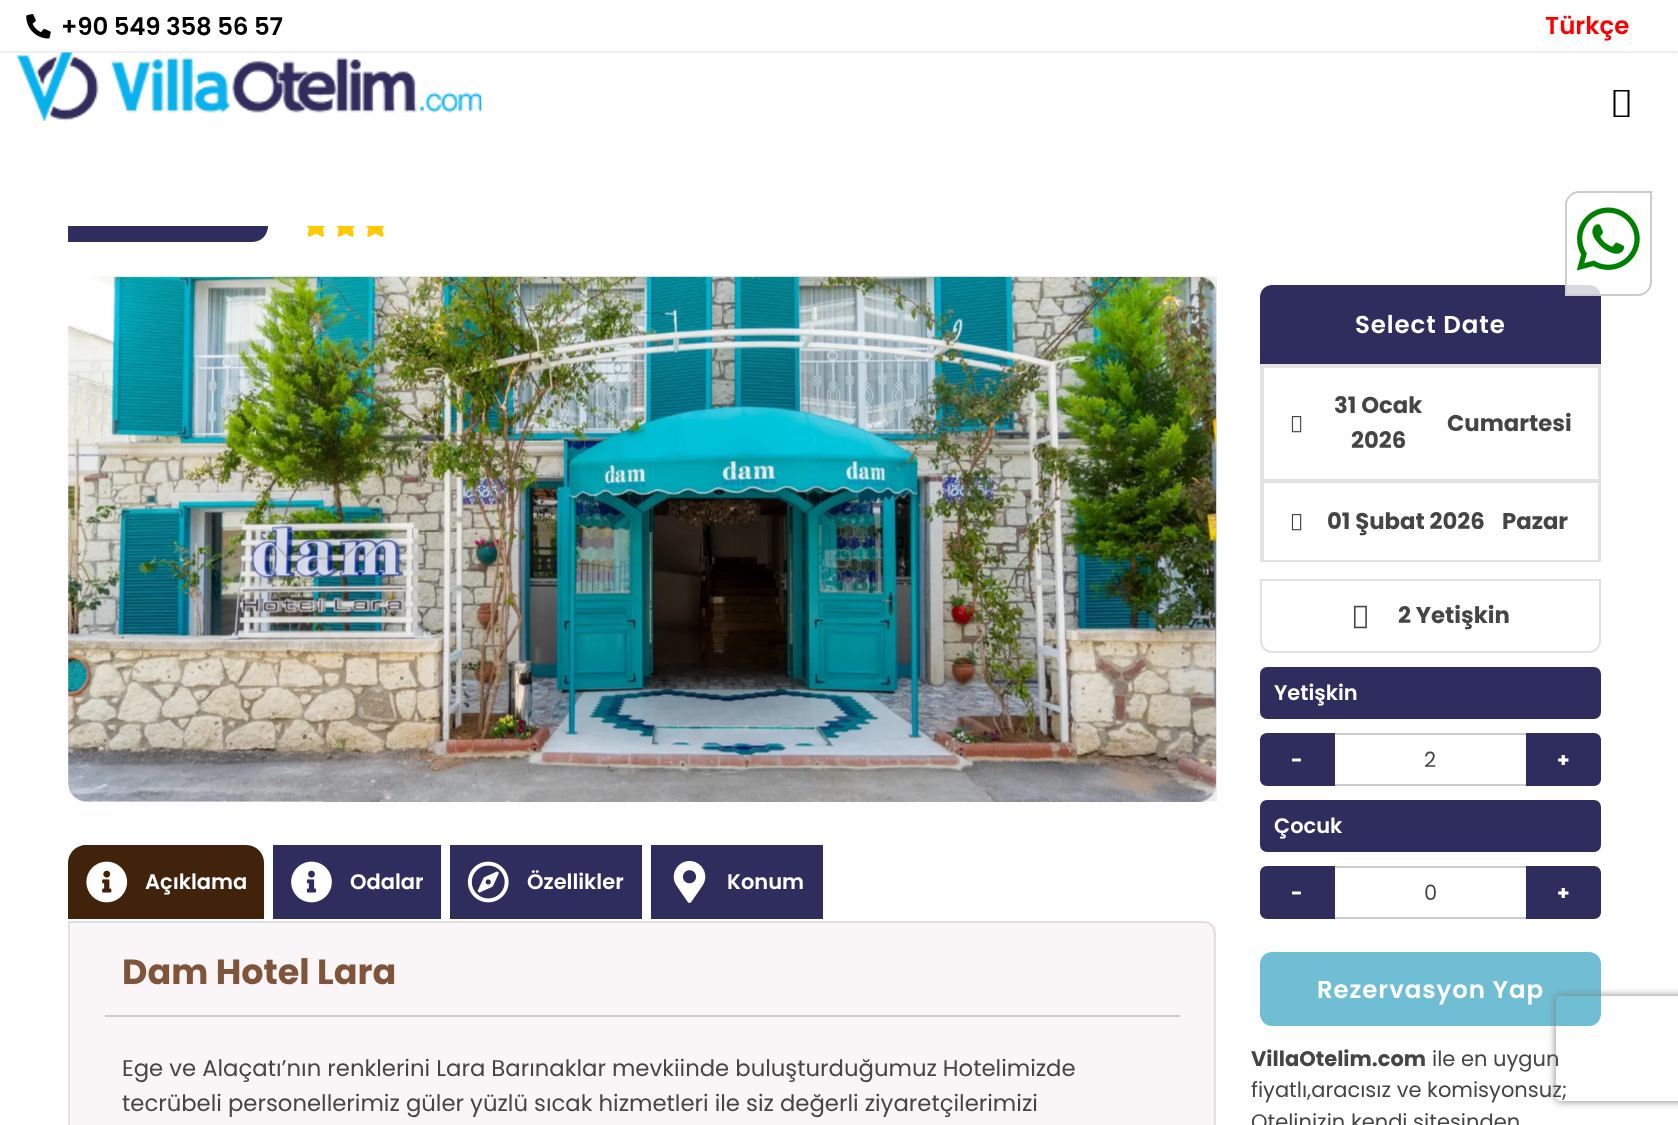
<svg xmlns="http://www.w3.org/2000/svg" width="1678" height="1125">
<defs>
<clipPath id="clip1"><path d="M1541 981h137v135h-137zm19 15h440c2 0 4 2 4 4v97c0 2-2 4-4 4h-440c-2 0-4-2-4-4v-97c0-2 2-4 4-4z" clip-rule="evenodd"/></clipPath>
</defs>
<rect width="100%" height="100%" fill="#fff"/>
<image x="26" y="14" width="25" height="25" href="media/1.png"/>
<text x="61" y="35" style="font-family:Poppins;font-size:24.5px;font-weight:600;letter-spacing:-0.2px;fill:#000">+90 549 358 56 57</text>
<text x="1545" y="34" style="font-family:Poppins;font-size:24.5px;font-weight:600;fill:#f00">Türkçe</text>
<rect y="53" width="1678" height="105" fill="#00000033" filter="blur(2px)"/>
<path d="M68 210h184c9 0 16 7 16 16c0 9-7 16-16 16h-184z" fill="#2f2d5d"/>
<rect y="53" width="1678" height="173" fill="#fff"/>
<image x="17" y="52" width="465" height="69" href="media/2.png"/>
<path d="M1613.5 117v-27h16v27zm2-1.5h12v-24h-12z" fill="#000"/>
<path d="M1272 285h317c6.5 0 12 5.5 12 12v67h-341v-67c0-6.5 5.5-12 12-12z" fill="#2f2d5d"/>
<path d="M1579 192h72v90c0 7-6 13-13 13h-72v-90c0-7 6-13 13-13z" fill="#ffffffd1" stroke="#cccaca" stroke-width="2"/>
<image x="1577" y="207" width="63" height="64" href="media/3.png"/>
<image x="306" y="226" width="20" height="11" href="media/4.png"/>
<image x="336" y="226" width="19" height="11" href="media/5.png"/>
<image x="366" y="226" width="19" height="11" href="media/6.png"/>
<image x="68" y="276" width="1149" height="526" href="media/7.png"/>
<image x="68" y="277" width="1148" height="525" href="media/8.png"/>
<path d="M86 845h160c10 0 18 8 18 18v56h-196v-56c0-10 8-18 18-18z" fill="#41220a"/>
<image x="86" y="861" width="42" height="42" href="media/9.png"/>
<text x="145" y="889" style="font-family:Poppins;font-size:21px;font-weight:600;fill:#fff">Açıklama</text>
<rect x="273" y="845" width="168" height="74" fill="#2f2d5d"/>
<image x="291" y="861" width="41" height="42" href="media/10.png"/>
<text x="350" y="889" style="font-family:Poppins;font-size:21px;font-weight:600;fill:#fff">Odalar</text>
<rect x="450" y="845" width="192" height="74" fill="#2f2d5d"/>
<image x="467" y="861" width="42" height="42" href="media/11.png"/>
<text x="527" y="889" style="font-family:Poppins;font-size:21px;font-weight:600;fill:#fff">Özellikler</text>
<rect x="651" y="845" width="172" height="74" fill="#2f2d5d"/>
<image x="673" y="861" width="33" height="42" href="media/12.png"/>
<text x="727" y="889" style="font-family:Poppins;font-size:21px;font-weight:600;fill:#fff">Konum</text>
<path d="M69 922h1135c6 0 11 5 11 11v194c0 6-5 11-11 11h-1124c-6 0-11-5-11-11z" fill="none" stroke="#e2e2e2" stroke-width="2"/>
<path d="M70 922h1134c6 0 11 5 11 11v192c0 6-5 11-11 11h-1123c-6 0-11-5-11-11z" fill="#c9949e17"/>
<rect x="105" y="1015" width="1075" height="2" fill="#ccc"/>
<text x="122" y="984" style="font-family:Poppins;font-size:35px;font-weight:bold;fill:#7e543b">Dam Hotel Lara</text>
<text x="122" y="1076" style="font-family:Poppins;font-size:22.75px;fill:#454545">Ege ve Alaçatı’nın renklerini Lara Barınaklar mevkiinde buluşturduğumuz Hotelimizde</text>
<text x="122" y="1111" style="font-family:Poppins;font-size:22.75px;fill:#454545">tecrübeli personellerimiz güler yüzlü sıcak hizmetleri ile siz değerli ziyaretçilerimizi</text>
<text x="1355" y="333" style="font-family:Poppins;font-size:24.5px;font-weight:600;letter-spacing:0.9px;fill:#fff">Select Date</text>
<rect x="1261" y="365" width="339" height="196" fill="none" stroke="#e2e2e2" stroke-width="2"/>
<rect x="1263" y="367" width="336" height="113" fill="none" stroke="#e2e2e2" stroke-width="2"/>
<image x="1291" y="416" width="11" height="17" href="media/13.png"/>
<text x="1334" y="413" style="font-family:Poppins;font-size:22.75px;font-weight:bold;fill:#454545">31 Ocak</text>
<text x="1351" y="448" style="font-family:Poppins;font-size:22.75px;font-weight:bold;fill:#454545">2026</text>
<text x="1447" y="431" style="font-family:Poppins;font-size:22.75px;font-weight:bold;fill:#454545">Cumartesi</text>
<rect x="1262" y="481" width="338" height="2" fill="#e2e2e2"/>
<rect x="1598" y="481" width="1" height="79" fill="#e2e2e2"/>
<rect x="1262" y="481" width="2" height="79" fill="#e2e2e2"/>
<image x="1291" y="514" width="11" height="17" href="media/13.png"/>
<text x="1327" y="529" style="font-family:Poppins;font-size:22.75px;font-weight:bold;fill:#454545">01 Şubat 2026</text>
<text x="1502" y="529" style="font-family:Poppins;font-size:22.75px;font-weight:bold;fill:#454545">Pazar</text>
<path d="M1261 580h339v61c0 6-5 11-11 11h-317c-6 0-11-5-11-11z" fill="none" stroke="#e2e2e2" stroke-width="2"/>
<image x="1353" y="605" width="14" height="24" href="media/14.png"/>
<text x="1398" y="623" style="font-family:Poppins;font-size:22.75px;font-weight:bold;fill:#454545">2 Yetişkin</text>
<rect x="1260" y="667" width="341" height="52" rx="7" fill="#2f2d5d"/>
<text x="1274" y="700" style="font-family:Poppins;font-size:21px;font-weight:600;fill:#fff">Yetişkin</text>
<path d="M1267 733h68v53h-68c-4 0-7-3-7-7v-39c0-4 3-7 7-7z" fill="#2f2d5d"/>
<text x="1291" y="767" style="font-family:Poppins;font-size:20px;font-weight:bold;fill:#fff">-</text>
<rect x="1335" y="733" width="191" height="2" fill="#ccc"/>
<rect x="1335" y="784" width="191" height="2" fill="#ccc"/>
<text x="1424" y="767" style="font-family:Poppins;font-size:21px;fill:#454545">2</text>
<path d="M1526 733h68c4 0 7 3 7 7v39c0 4-3 7-7 7h-68z" fill="#2f2d5d"/>
<text x="1557" y="767" style="font-family:Poppins;font-size:20px;font-weight:bold;fill:#fff">+</text>
<rect x="1260" y="800" width="341" height="52" rx="7" fill="#2f2d5d"/>
<text x="1274" y="833" style="font-family:Poppins;font-size:21px;font-weight:600;fill:#fff">Çocuk</text>
<path d="M1267 866h68v53h-68c-4 0-7-3-7-7v-39c0-4 3-7 7-7z" fill="#2f2d5d"/>
<text x="1291" y="900" style="font-family:Poppins;font-size:20px;font-weight:bold;fill:#fff">-</text>
<rect x="1335" y="866" width="191" height="2" fill="#ccc"/>
<rect x="1335" y="917" width="191" height="2" fill="#ccc"/>
<text x="1424" y="900" style="font-family:Poppins;font-size:21px;fill:#454545">0</text>
<path d="M1526 866h68c4 0 7 3 7 7v39c0 4-3 7-7 7h-68z" fill="#2f2d5d"/>
<text x="1557" y="900" style="font-family:Poppins;font-size:20px;font-weight:bold;fill:#fff">+</text>
<rect x="1260" y="952" width="341" height="74" rx="12" fill="#70bed4"/>
<text x="1317" y="998" style="font-family:Poppins;font-size:24.5px;font-weight:600;letter-spacing:0.9px;fill:#fff">Rezervasyon Yap</text>
<text x="1251" y="1066" style="font-family:Poppins;font-size:21px;font-weight:bold;fill:#454545">VillaOtelim.com</text>
<text x="1432" y="1066" style="font-family:Poppins;font-size:21px;fill:#454545">ile en uygun</text>
<text x="1251" y="1097" style="font-family:Poppins;font-size:21px;fill:#454545">fiyatlı,aracısız ve komisyonsuz;</text>
<text x="1251" y="1129" style="font-family:Poppins;font-size:21px;fill:#454545">Otelinizin kendi sitesinden</text>
<g clip-path="url(#clip1)">
<rect x="1556" y="996" width="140" height="105" rx="4" fill="#808080" filter="blur(4.5px)"/>
</g>
</svg>
